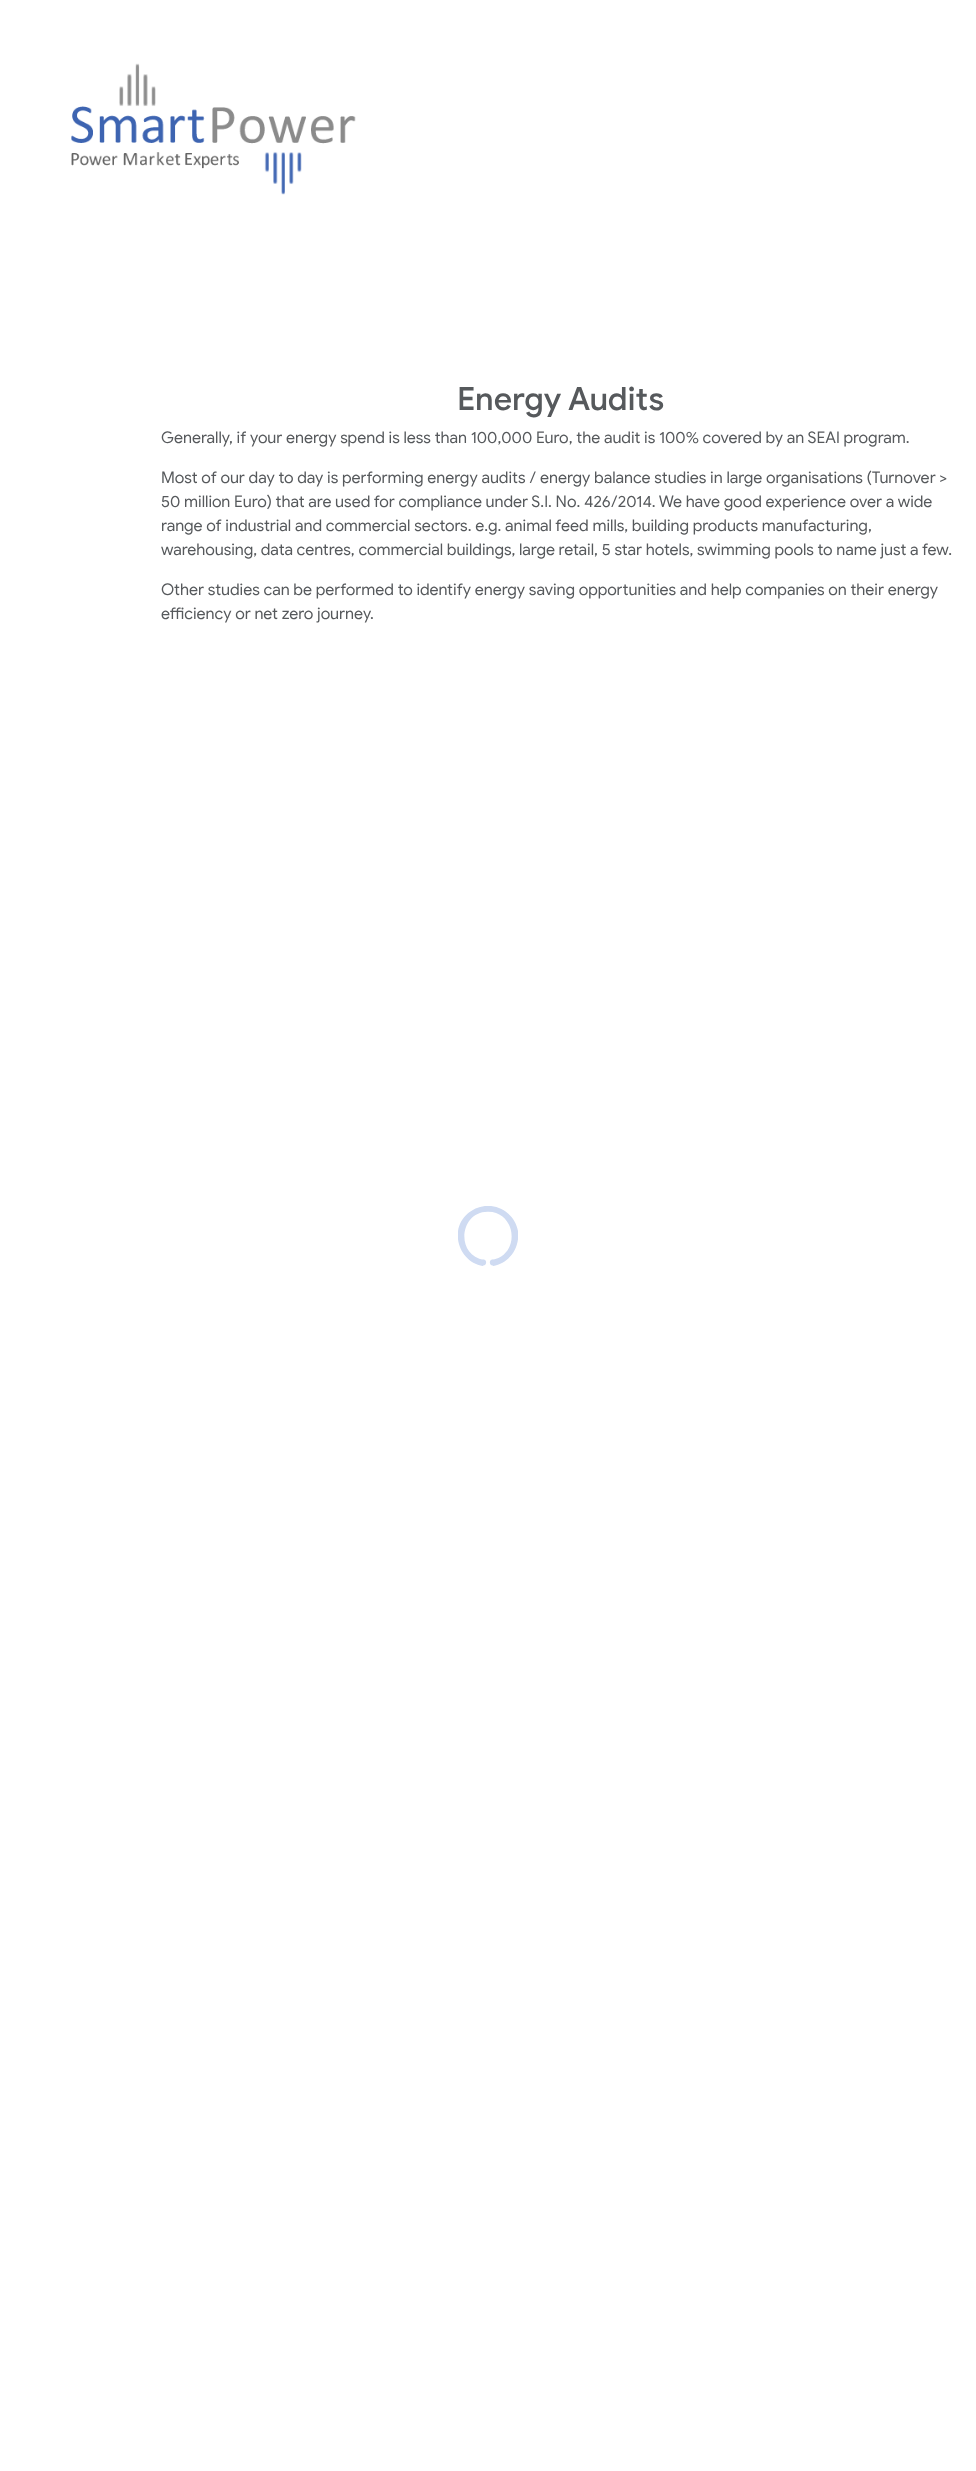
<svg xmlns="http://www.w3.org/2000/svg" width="976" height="2471">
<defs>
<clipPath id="clip1"><rect x="458" y="1206" width="30" height="60"/></clipPath>
<clipPath id="clip2"><rect x="488" y="1206" width="30" height="60"/></clipPath>
</defs>
<rect width="100%" height="100%" fill="#fff"/>
<image x="71" y="63" width="285" height="132" href="media/1.png"/>
<text x="457" y="410" style="font-family:Google Sans;font-size:32px;font-weight:500;fill:#56595c">Energy Audits</text>
<text x="161" y="443" style="font-family:Google Sans;font-size:16px;fill:#56595c">Generally, if your energy spend is less than 100,000 Euro, the audit is 100% covered by an SEAI program.</text>
<text x="161" y="483" style="font-family:Google Sans;font-size:16px;fill:#56595c">Most of our day to day is performing energy audits / energy balance studies in large organisations (Turnover &gt;</text>
<text x="161" y="507" style="font-family:Google Sans;font-size:16px;fill:#56595c">50 million Euro) that are used for compliance under S.I. No. 426/2014. We have good experience over a wide</text>
<text x="161" y="531" style="font-family:Google Sans;font-size:16px;fill:#56595c">range of industrial and commercial sectors. e.g. animal feed mills, building products manufacturing,</text>
<text x="161" y="555" style="font-family:Google Sans;font-size:16px;fill:#56595c">warehousing, data centres, commercial buildings, large retail, 5 star hotels, swimming pools to name just a few.</text>
<text x="161" y="595" style="font-family:Google Sans;font-size:16px;fill:#56595c">Other studies can be performed to identify energy saving opportunities and help companies on their energy</text>
<text x="161" y="619" style="font-family:Google Sans;font-size:16px;fill:#56595c">efficiency or net zero journey.</text>
<g clip-path="url(#clip1)">
<path d="M493 1206l-10 60c-17-3-27-19-25-35c3-17 19-27 35-25zm-1 6l-8 48c-31-6-23-53 8-48z" fill="#cfdbf2" fill-rule="evenodd"/>
</g>
<path d="M484 1259.5c3.5 1 2.5 6.5-1 6c-4-.5-3-6.5 1-6z" fill="#cfdbf2"/>
<g clip-path="url(#clip2)">
<path d="M483 1206c16-2 32 8 35 25c2 16-8 32-25 35zm1 6c31-5 39 42 8 48z" fill="#cfdbf2" fill-rule="evenodd"/>
</g>
<path d="M492 1259.5c4-.5 5 5.5 1 6c-3.5 .5-4.5-5-1-6z" fill="#cfdbf2"/>
</svg>
